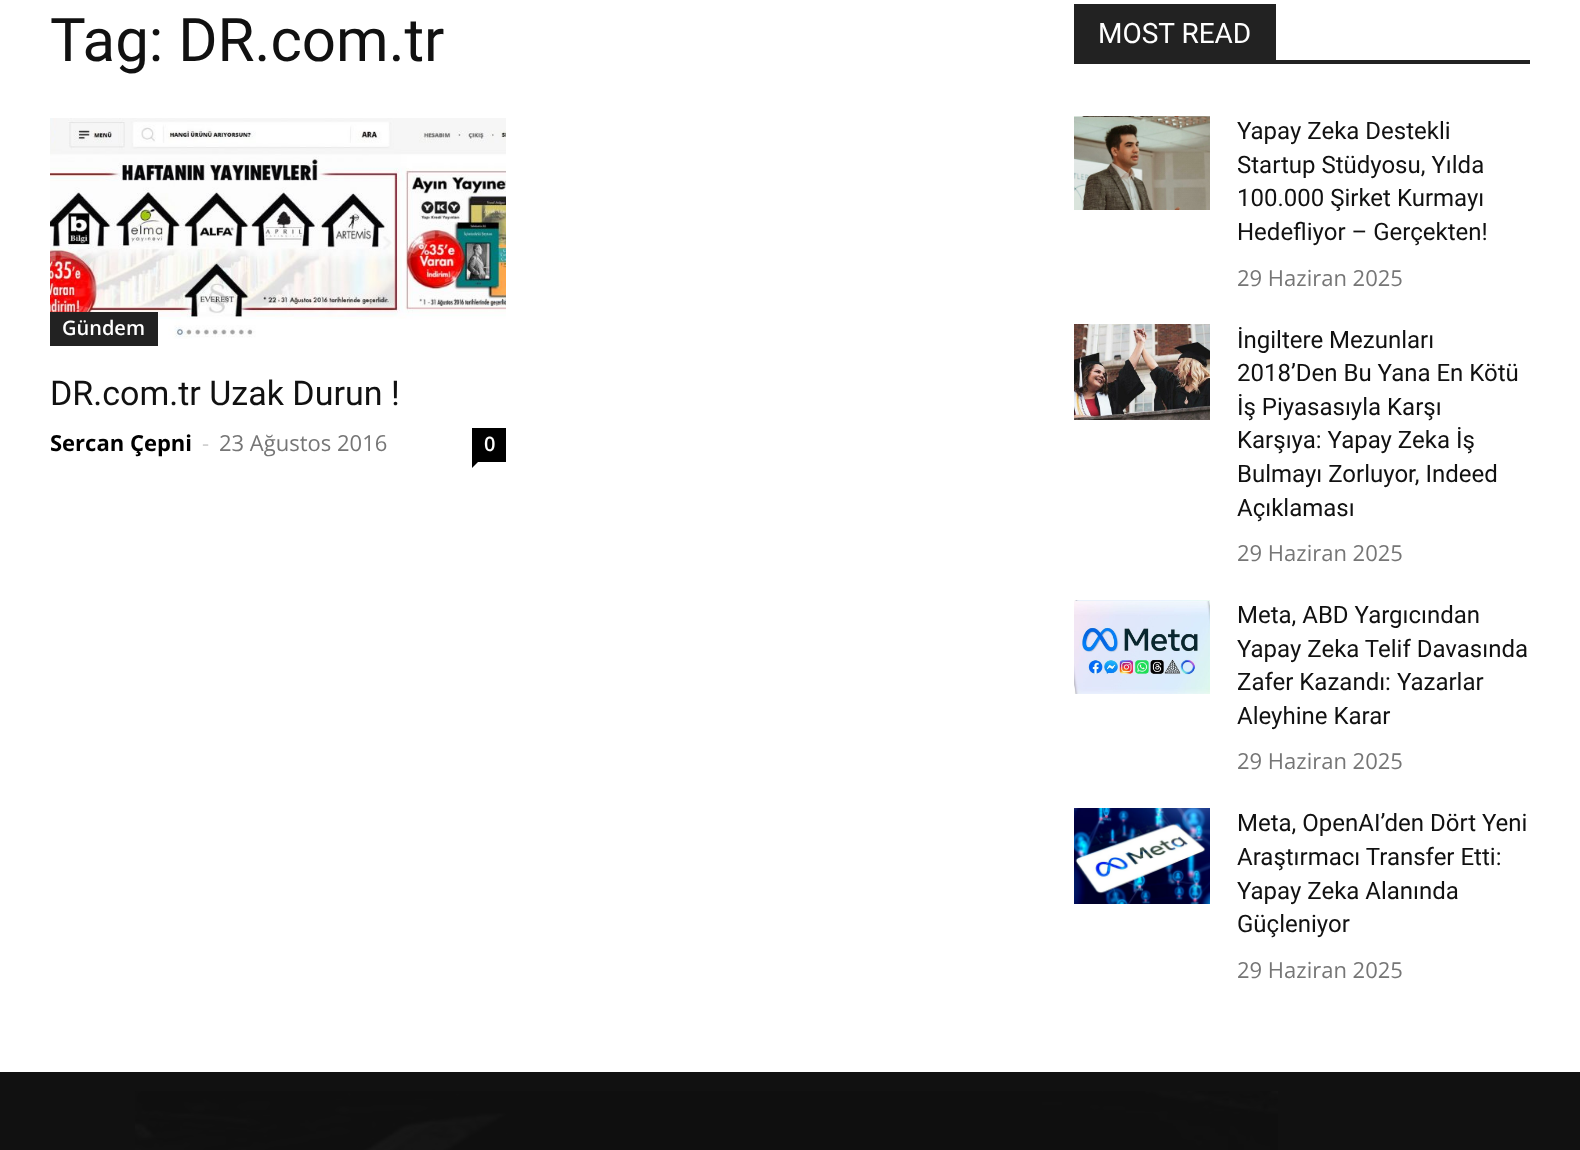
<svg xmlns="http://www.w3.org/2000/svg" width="1580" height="1150">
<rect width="100%" height="100%" fill="#fff"/>
<text x="50" y="61" style="font-family:Roboto;font-size:60px;fill:#111">Tag: DR.com.tr</text>
<image x="50" y="118" width="456" height="221" href="media/1.png"/>
<rect x="50" y="312" width="108" height="34" fill="#222"/>
<text x="62" y="335" style="font-family:Open Sans;font-size:20px;font-weight:600;fill:#fff">Gündem</text>
<text x="50" y="405" style="font-family:Roboto;font-size:34px;fill:#111">DR.com.tr Uzak Durun !</text>
<text x="50" y="451" style="font-family:Open Sans;font-size:22px;font-weight:bold;fill:#000">Sercan Çepni</text>
<text x="202" y="451" style="font-family:Open Sans;font-size:22px;fill:#ccc">-</text>
<text x="219" y="451" style="font-family:Open Sans;font-size:22px;fill:#767676">23 Ağustos 2016</text>
<rect x="472" y="428" width="34" height="34" fill="#000"/>
<text x="484" y="451" style="font-family:Open Sans;font-size:20px;font-weight:600;fill:#fff">0</text>
<path d="M472 462h6l-6 6z" fill="#000"/>
<rect x="1074" y="60" width="456" height="4" fill="#222"/>
<rect x="1074" y="4" width="202" height="56" fill="#222"/>
<text x="1098" y="43" style="font-family:Roboto;font-size:28px;fill:#fff">MOST READ</text>
<image x="1074" y="116" width="136" height="94" href="media/2.png"/>
<text x="1237" y="139" style="font-family:Roboto;font-size:24px;fill:#111">Yapay Zeka Destekli</text>
<text x="1237" y="173" style="font-family:Roboto;font-size:24px;fill:#111">Startup Stüdyosu, Yılda</text>
<text x="1237" y="206" style="font-family:Roboto;font-size:24px;fill:#111">100.000 Şirket Kurmayı</text>
<text x="1237" y="240" style="font-family:Roboto;font-size:24px;fill:#111">Hedefliyor – Gerçekten!</text>
<text x="1237" y="286" style="font-family:Open Sans;font-size:22px;fill:#767676">29 Haziran 2025</text>
<image x="1074" y="324" width="136" height="96" href="media/3.png"/>
<text x="1237" y="348" style="font-family:Roboto;font-size:24px;fill:#111">İngiltere Mezunları</text>
<text x="1237" y="381" style="font-family:Roboto;font-size:24px;fill:#111">2018’Den Bu Yana En Kötü</text>
<text x="1237" y="415" style="font-family:Roboto;font-size:24px;fill:#111">İş Piyasasıyla Karşı</text>
<text x="1237" y="448" style="font-family:Roboto;font-size:24px;fill:#111">Karşıya: Yapay Zeka İş</text>
<text x="1237" y="482" style="font-family:Roboto;font-size:24px;fill:#111">Bulmayı Zorluyor, Indeed</text>
<text x="1237" y="516" style="font-family:Roboto;font-size:24px;fill:#111">Açıklaması</text>
<text x="1237" y="561" style="font-family:Open Sans;font-size:22px;fill:#767676">29 Haziran 2025</text>
<image x="1074" y="600" width="136" height="94" href="media/4.png"/>
<text x="1237" y="623" style="font-family:Roboto;font-size:24px;fill:#111">Meta, ABD Yargıcından</text>
<text x="1237" y="657" style="font-family:Roboto;font-size:24px;fill:#111">Yapay Zeka Telif Davasında</text>
<text x="1237" y="690" style="font-family:Roboto;font-size:24px;fill:#111">Zafer Kazandı: Yazarlar</text>
<text x="1237" y="724" style="font-family:Roboto;font-size:24px;fill:#111">Aleyhine Karar</text>
<text x="1237" y="769" style="font-family:Open Sans;font-size:22px;fill:#767676">29 Haziran 2025</text>
<image x="1074" y="808" width="136" height="96" href="media/5.png"/>
<text x="1237" y="831" style="font-family:Roboto;font-size:24px;fill:#111">Meta, OpenAI’den Dört Yeni</text>
<text x="1237" y="865" style="font-family:Roboto;font-size:24px;fill:#111">Araştırmacı Transfer Etti:</text>
<text x="1237" y="899" style="font-family:Roboto;font-size:24px;fill:#111">Yapay Zeka Alanında</text>
<text x="1237" y="932" style="font-family:Roboto;font-size:24px;fill:#111">Güçleniyor</text>
<text x="1237" y="978" style="font-family:Open Sans;font-size:22px;fill:#767676">29 Haziran 2025</text>
<rect y="1072" width="1580" height="78" fill="#111"/>
<image x="135" y="1091" width="1143" height="59" href="media/6.png"/>
</svg>
